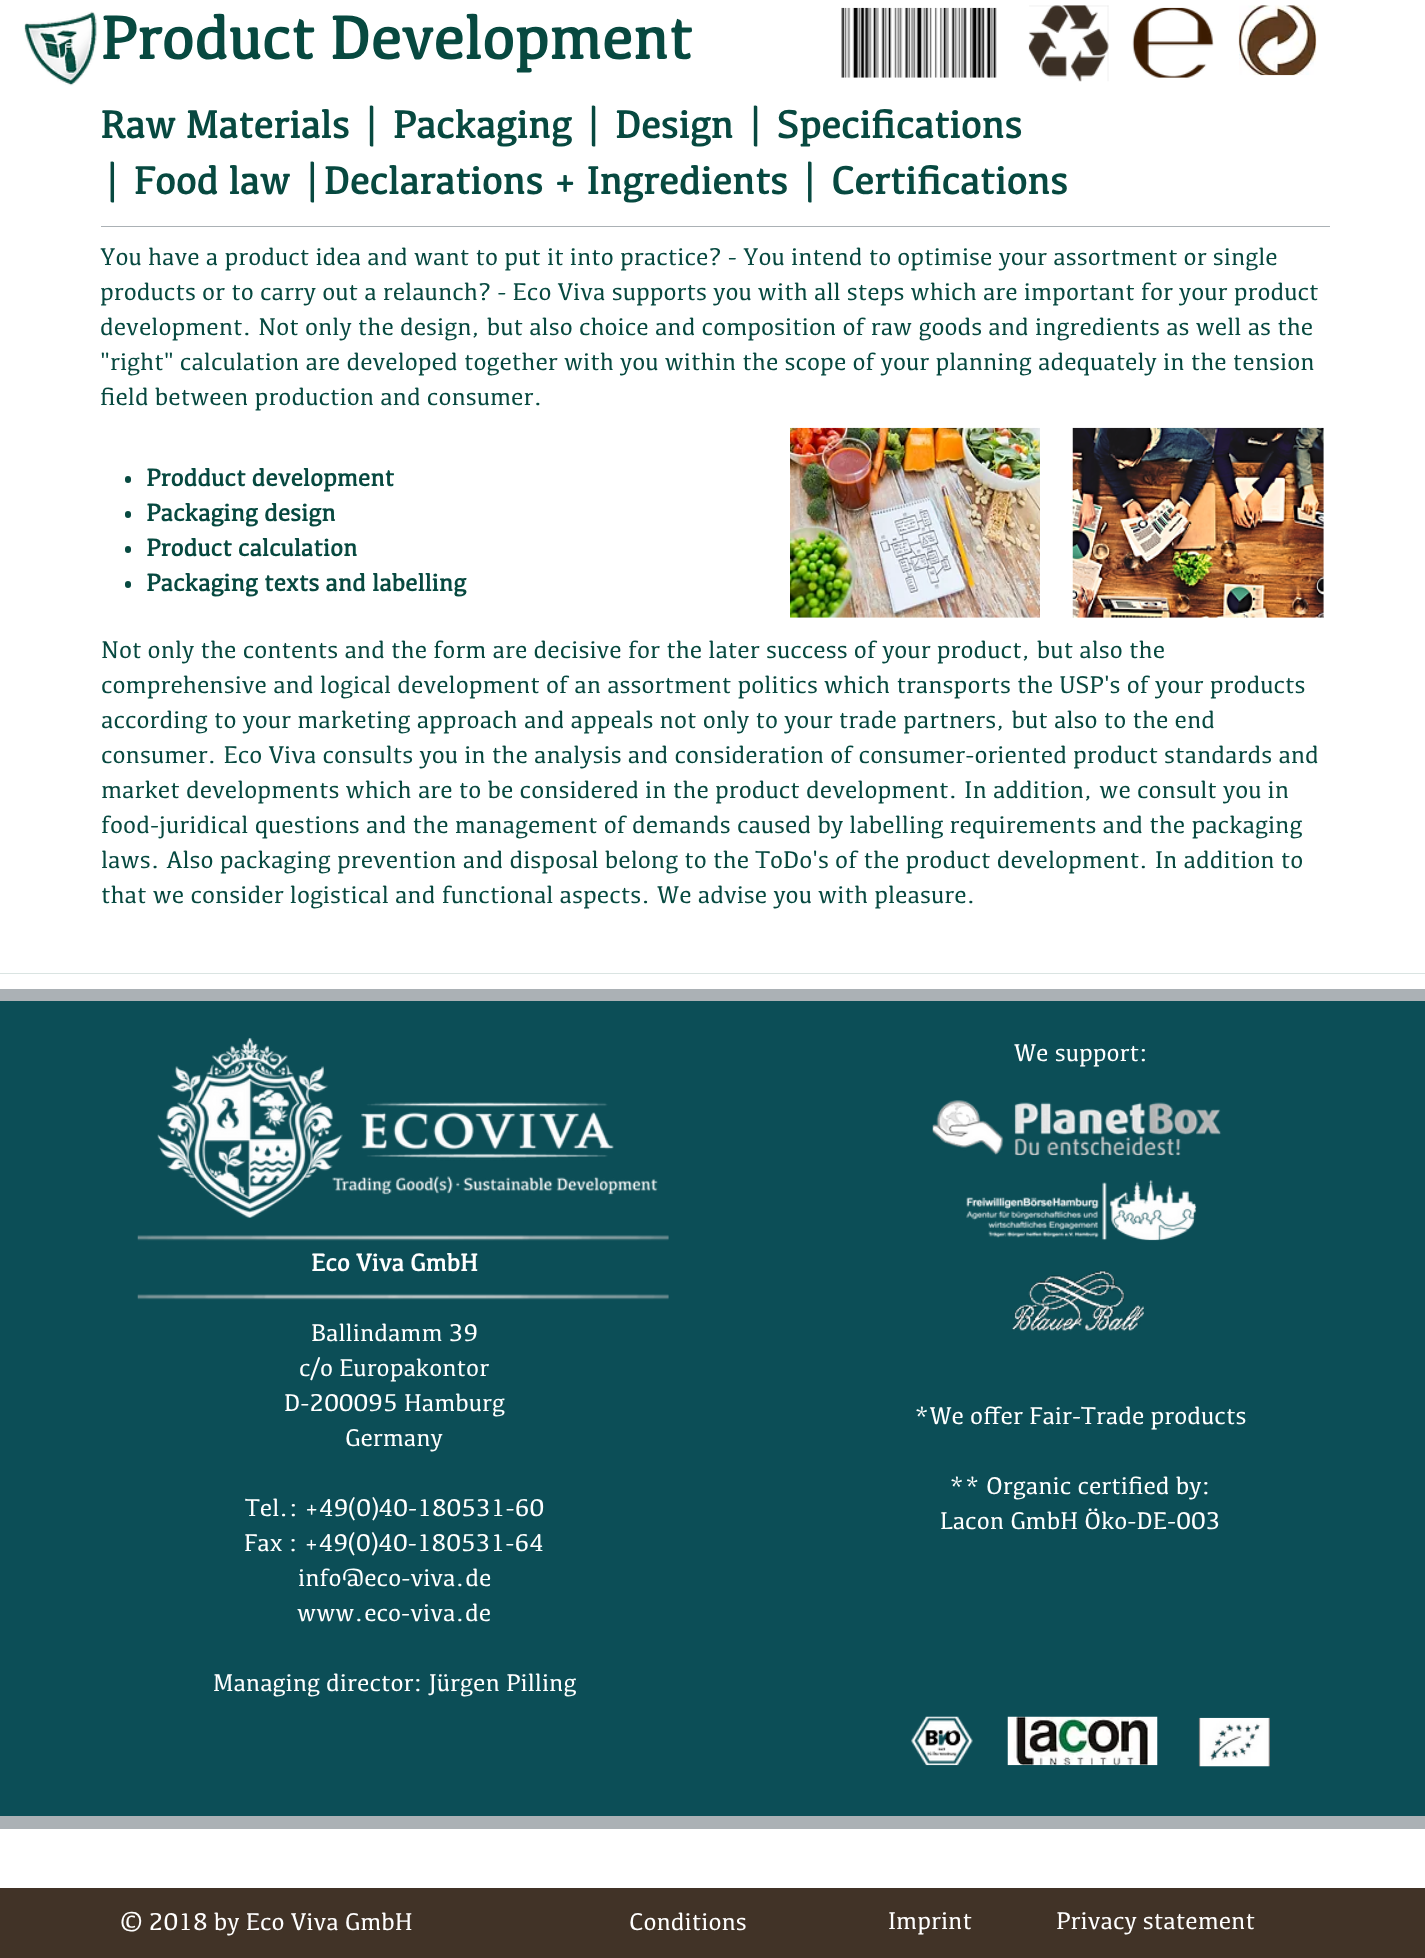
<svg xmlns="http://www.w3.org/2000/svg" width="1425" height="1958">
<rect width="100%" height="100%" fill="#fff"/>
<image x="24" y="11" width="73" height="75" href="media/1.png"/>
<text x="100" y="59" style="font-family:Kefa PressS;font-size:62.5px;font-weight:bold;fill:#074940">Product Development</text>
<image x="841" y="7" width="156" height="71" href="media/2.png"/>
<image x="1028" y="5" width="81" height="77" href="media/3.png"/>
<image x="1132" y="7" width="82" height="71" href="media/4.png"/>
<image x="1238" y="5" width="79" height="71" href="media/5.png"/>
<text x="100" y="138" style="font-family:Kefa PressS;font-size:40px;font-weight:bold;fill:#074940">Raw Materials | Packaging | Design | Specifications</text>
<text x="100" y="194" style="font-family:Kefa PressS;font-size:40px;font-weight:bold;fill:#074940">| Food law |Declarations + Ingredients | Certifications</text>
<rect x="101" y="226" width="1229" height="1" fill="#abb1b5"/>
<text x="100" y="265" style="font-family:Kefa PressS;font-size:25px;fill:#074940">You have a product idea and want to put it into practice? - You intend to optimise your assortment or single</text>
<text x="100" y="300" style="font-family:Kefa PressS;font-size:25px;fill:#074940">products or to carry out a relaunch? - Eco Viva supports you with all steps which are important for your product</text>
<text x="100" y="335" style="font-family:Kefa PressS;font-size:25px;fill:#074940">development. Not only the design, but also choice and composition of raw goods and ingredients as well as the</text>
<text x="100" y="370" style="font-family:Kefa PressS;font-size:25px;fill:#074940">"right" calculation are developed together with you within the scope of your planning adequately in the tension</text>
<text x="100" y="405" style="font-family:Kefa PressS;font-size:25px;fill:#074940">field between production and consumer.</text>
<image x="790" y="427" width="250" height="191" href="media/6.png"/>
<image x="1072" y="427" width="252" height="191" href="media/7.png"/>
<rect x="125" y="476" width="6" height="7" rx="3" fill="#074940"/>
<text x="146" y="486" style="font-family:Kefa PressS;font-size:25px;font-weight:bold;fill:#074940">Prodduct development</text>
<rect x="125" y="511" width="6" height="7" rx="3" fill="#074940"/>
<text x="146" y="521" style="font-family:Kefa PressS;font-size:25px;font-weight:bold;fill:#074940">Packaging design</text>
<rect x="125" y="546" width="6" height="7" rx="3" fill="#074940"/>
<text x="146" y="556" style="font-family:Kefa PressS;font-size:25px;font-weight:bold;fill:#074940">Product calculation</text>
<rect x="125" y="581" width="6" height="7" rx="3" fill="#074940"/>
<text x="146" y="591" style="font-family:Kefa PressS;font-size:25px;font-weight:bold;fill:#074940">Packaging texts and labelling</text>
<text x="101" y="658" style="font-family:Kefa PressS;font-size:25px;fill:#074940">Not only the contents and the form are decisive for the later success of your product, but also the</text>
<text x="101" y="693" style="font-family:Kefa PressS;font-size:25px;fill:#074940">comprehensive and logical development of an assortment politics which transports the USP's of your products</text>
<text x="101" y="728" style="font-family:Kefa PressS;font-size:25px;fill:#074940">according to your marketing approach and appeals not only to your trade partners, but also to the end</text>
<text x="101" y="763" style="font-family:Kefa PressS;font-size:25px;fill:#074940">consumer. Eco Viva consults you in the analysis and consideration of consumer-oriented product standards and</text>
<text x="101" y="798" style="font-family:Kefa PressS;font-size:25px;fill:#074940">market developments which are to be considered in the product development. In addition, we consult you in</text>
<text x="101" y="833" style="font-family:Kefa PressS;font-size:25px;fill:#074940">food-juridical questions and the management of demands caused by labelling requirements and the packaging</text>
<text x="101" y="868" style="font-family:Kefa PressS;font-size:25px;fill:#074940">laws. Also packaging prevention and disposal belong to the ToDo's of the product development. In addition to</text>
<text x="101" y="903" style="font-family:Kefa PressS;font-size:25px;fill:#074940">that we consider logistical and functional aspects. We advise you with pleasure.</text>
<rect y="973" width="1425" height="1" fill="#dae4e2"/>
<rect y="1001" width="1425" height="815" fill="#0c4e57"/>
<rect y="989" width="1425" height="12" fill="#abb1b5"/>
<image x="157" y="1037" width="501" height="181" href="media/8.png"/>
<text x="1014" y="1061" style="font-family:Kefa PressS;font-size:25px;fill:#fff">We support:</text>
<image x="932" y="1100" width="290" height="56" href="media/9.png"/>
<image x="966" y="1180" width="231" height="61" href="media/10.png"/>
<text x="311" y="1271" style="font-family:Kefa PressS;font-size:25px;font-weight:bold;fill:#fff">Eco Viva GmbH</text>
<image x="137" y="1235" width="532" height="65" href="media/11.png"/>
<text x="311" y="1341" style="font-family:Kefa PressS;font-size:25px;fill:#fff">Ballindamm 39</text>
<text x="299" y="1376" style="font-family:Kefa PressS;font-size:25px;fill:#fff">c/o Europakontor</text>
<text x="284" y="1411" style="font-family:Kefa PressS;font-size:25px;fill:#fff">D-200095 Hamburg</text>
<text x="345" y="1446" style="font-family:Kefa PressS;font-size:25px;fill:#fff">Germany</text>
<text x="245" y="1516" style="font-family:Kefa PressS;font-size:25px;fill:#fff">Tel.: +49(0)40-180531-60</text>
<text x="244" y="1551" style="font-family:Kefa PressS;font-size:25px;fill:#fff">Fax : +49(0)40-180531-64</text>
<text x="298" y="1586" style="font-family:Kefa PressS;font-size:25px;fill:#fff">info@eco-viva.de</text>
<text x="297" y="1621" style="font-family:Kefa PressS;font-size:25px;fill:#fff">www.eco-viva.de</text>
<text x="213" y="1691" style="font-family:Kefa PressS;font-size:25px;fill:#fff">Managing director: Jürgen Pilling</text>
<image x="1012" y="1270" width="132" height="61" href="media/12.png"/>
<text x="914" y="1424" style="font-family:Kefa PressS;font-size:25px;fill:#fff">*We offer Fair-Trade products</text>
<text x="949" y="1494" style="font-family:Kefa PressS;font-size:25px;fill:#fff">** Organic certified by:</text>
<text x="940" y="1529" style="font-family:Kefa PressS;font-size:25px;fill:#fff">Lacon GmbH Öko-DE-003</text>
<image x="911" y="1716" width="62" height="50" href="media/13.png"/>
<image x="1007" y="1716" width="151" height="50" href="media/14.png"/>
<image x="1198" y="1717" width="72" height="50" href="media/15.png"/>
<rect y="1816" width="1425" height="13" fill="#abb1b5"/>
<rect y="1888" width="1425" height="70" fill="#413327"/>
<text x="120" y="1930" style="font-family:Kefa PressS;font-size:25px;fill:#fff">© 2018 by Eco Viva GmbH</text>
<text x="629" y="1930" style="font-family:Kefa PressS;font-size:25px;fill:#fff">Conditions</text>
<text x="888" y="1929" style="font-family:Kefa PressS;font-size:25px;fill:#fff">Imprint</text>
<text x="1056" y="1929" style="font-family:Kefa PressS;font-size:25px;fill:#fff">Privacy statement</text>
</svg>
